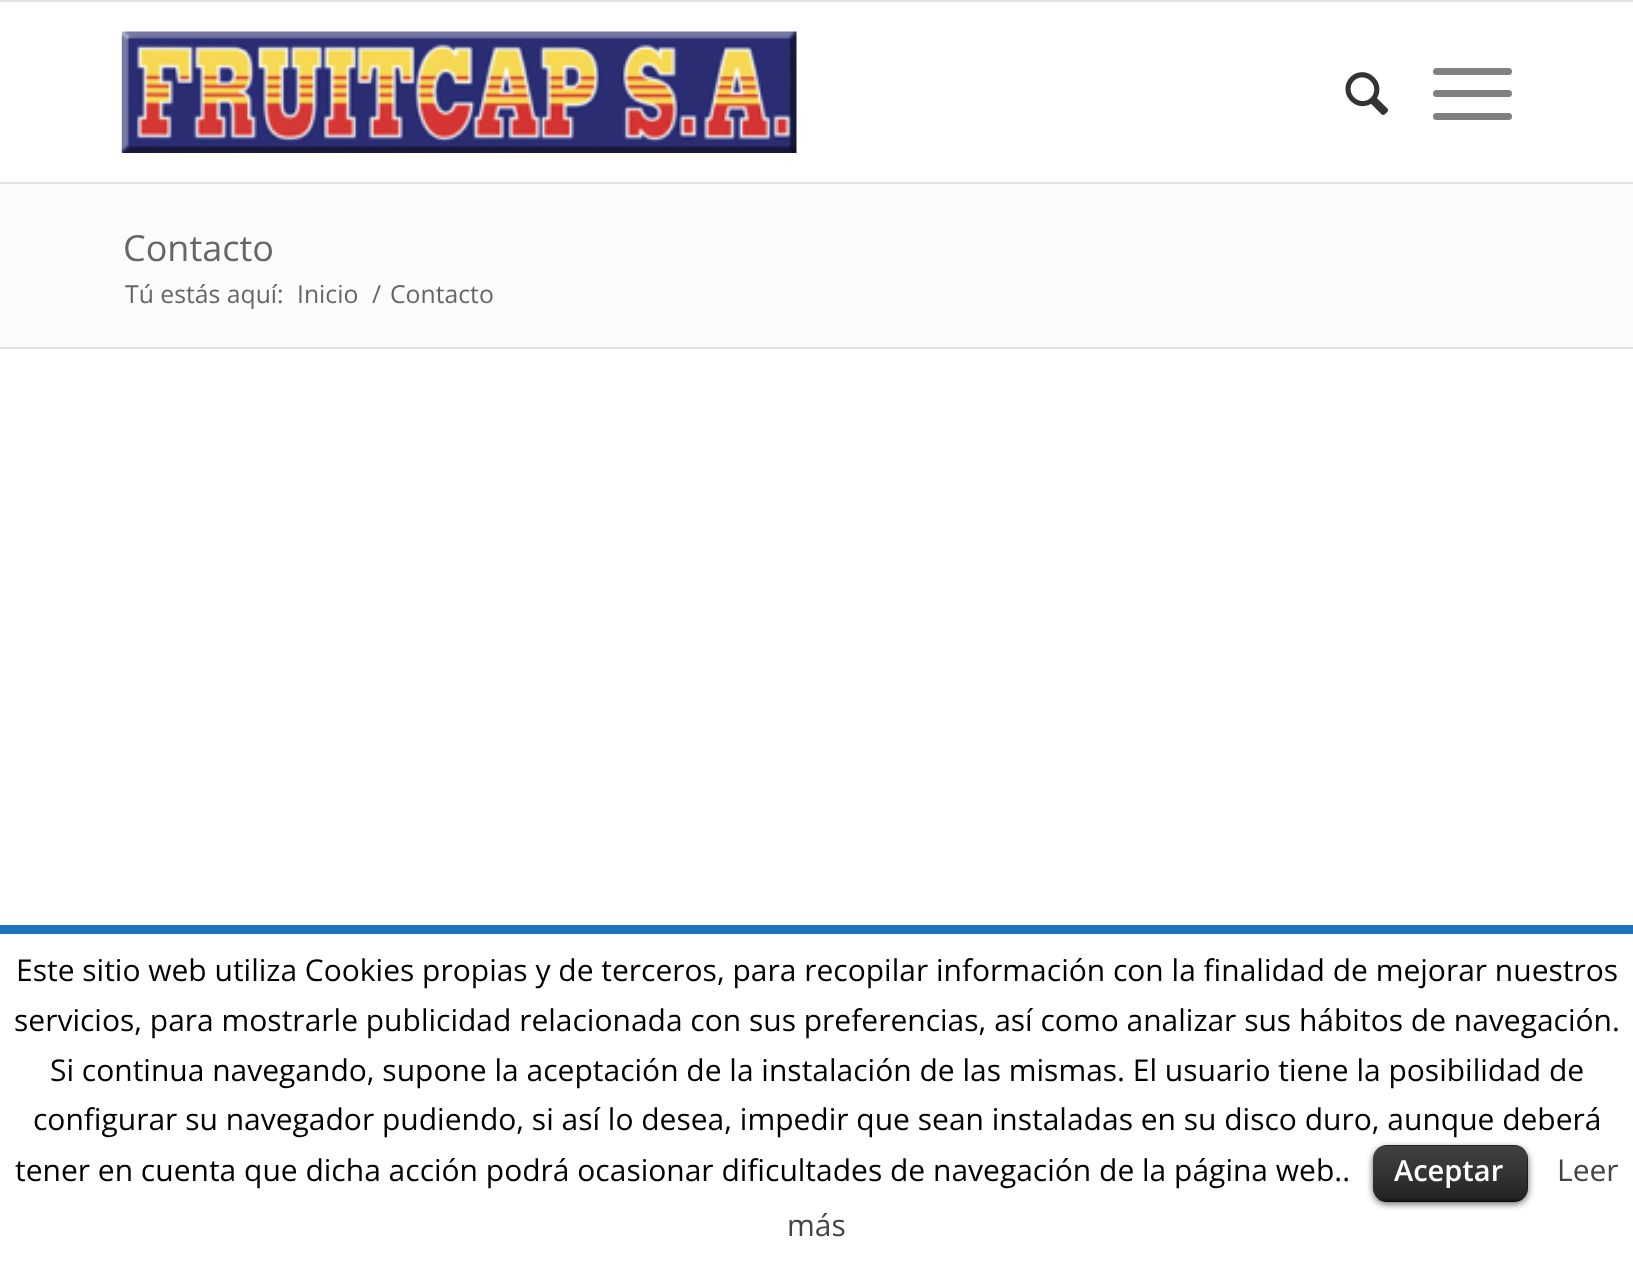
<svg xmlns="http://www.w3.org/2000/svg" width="1633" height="1262">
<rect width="100%" height="100%" fill="#fff"/>
<rect width="1633" height="2" fill="#e1e1e1"/>
<rect y="182" width="1633" height="2" fill="#e1e1e1"/>
<image x="121" y="31" width="676" height="122" href="media/1.png"/>
<image x="1345" y="72" width="44" height="43" href="media/2.png"/>
<rect x="1433" y="90" width="79" height="7" rx="3.5" fill="#808080"/>
<rect x="1433" y="68" width="79" height="7" rx="3.5" fill="#808080"/>
<rect x="1433" y="113" width="79" height="7" rx="3.5" fill="#808080"/>
<rect y="185" width="1633" height="162" fill="#fcfcfc"/>
<text x="123" y="261" style="font-family:Open Sans;font-size:36px;fill:#666">Contacto</text>
<text x="125" y="303" style="font-family:Open Sans;font-size:24.75px;fill:#666">Tú estás aquí:</text>
<text x="297" y="303" style="font-family:Open Sans;font-size:24.75px;fill:#666">Inicio</text>
<text x="372" y="303" style="font-family:Open Sans;font-size:24.75px;fill:#666">/</text>
<text x="390" y="303" style="font-family:Open Sans;font-size:24.75px;fill:#666">Contacto</text>
<rect y="347" width="1633" height="2" fill="#e1e1e1"/>
<rect y="925" width="1633" height="9" fill="#1e73be"/>
<text x="16" y="981" style="font-family:Open Sans;font-size:30px;fill:#000">Este sitio web utiliza Cookies propias y de terceros, para recopilar información con la finalidad de mejorar nuestros</text>
<text x="14" y="1031" style="font-family:Open Sans;font-size:30px;fill:#000">servicios, para mostrarle publicidad relacionada con sus preferencias, así como analizar sus hábitos de navegación.</text>
<text x="50" y="1081" style="font-family:Open Sans;font-size:30px;fill:#000">Si continua navegando, supone la aceptación de la instalación de las mismas. El usuario tiene la posibilidad de</text>
<text x="33" y="1130" style="font-family:Open Sans;font-size:30px;fill:#000">configurar su navegador pudiendo, si así lo desea, impedir que sean instaladas en su disco duro, aunque deberá</text>
<text x="15" y="1181" style="font-family:Open Sans;font-size:30px;fill:#000">tener en cuenta que dicha acción podrá ocasionar dificultades de navegación de la página web..</text>
<rect x="1373" y="1148" width="155" height="56" rx="14" fill="#00000099" filter="blur(3.5px)"/>
<rect x="1373" y="1145" width="155" height="57" rx="14" fill="#000"/>
<image x="1373" y="1145" width="155" height="57" href="media/3.png"/>
<rect x="1379" y="1199" width="142" height="2" fill="#00000040"/>
<text x="1394" y="1181" style="font-family:Open Sans;font-size:29px;font-weight:600;fill:#fff">Aceptar</text>
<text x="1557" y="1181" style="font-family:Open Sans;font-size:30px;fill:#444">Leer</text>
<text x="787" y="1236" style="font-family:Open Sans;font-size:30px;fill:#444">más</text>
</svg>
